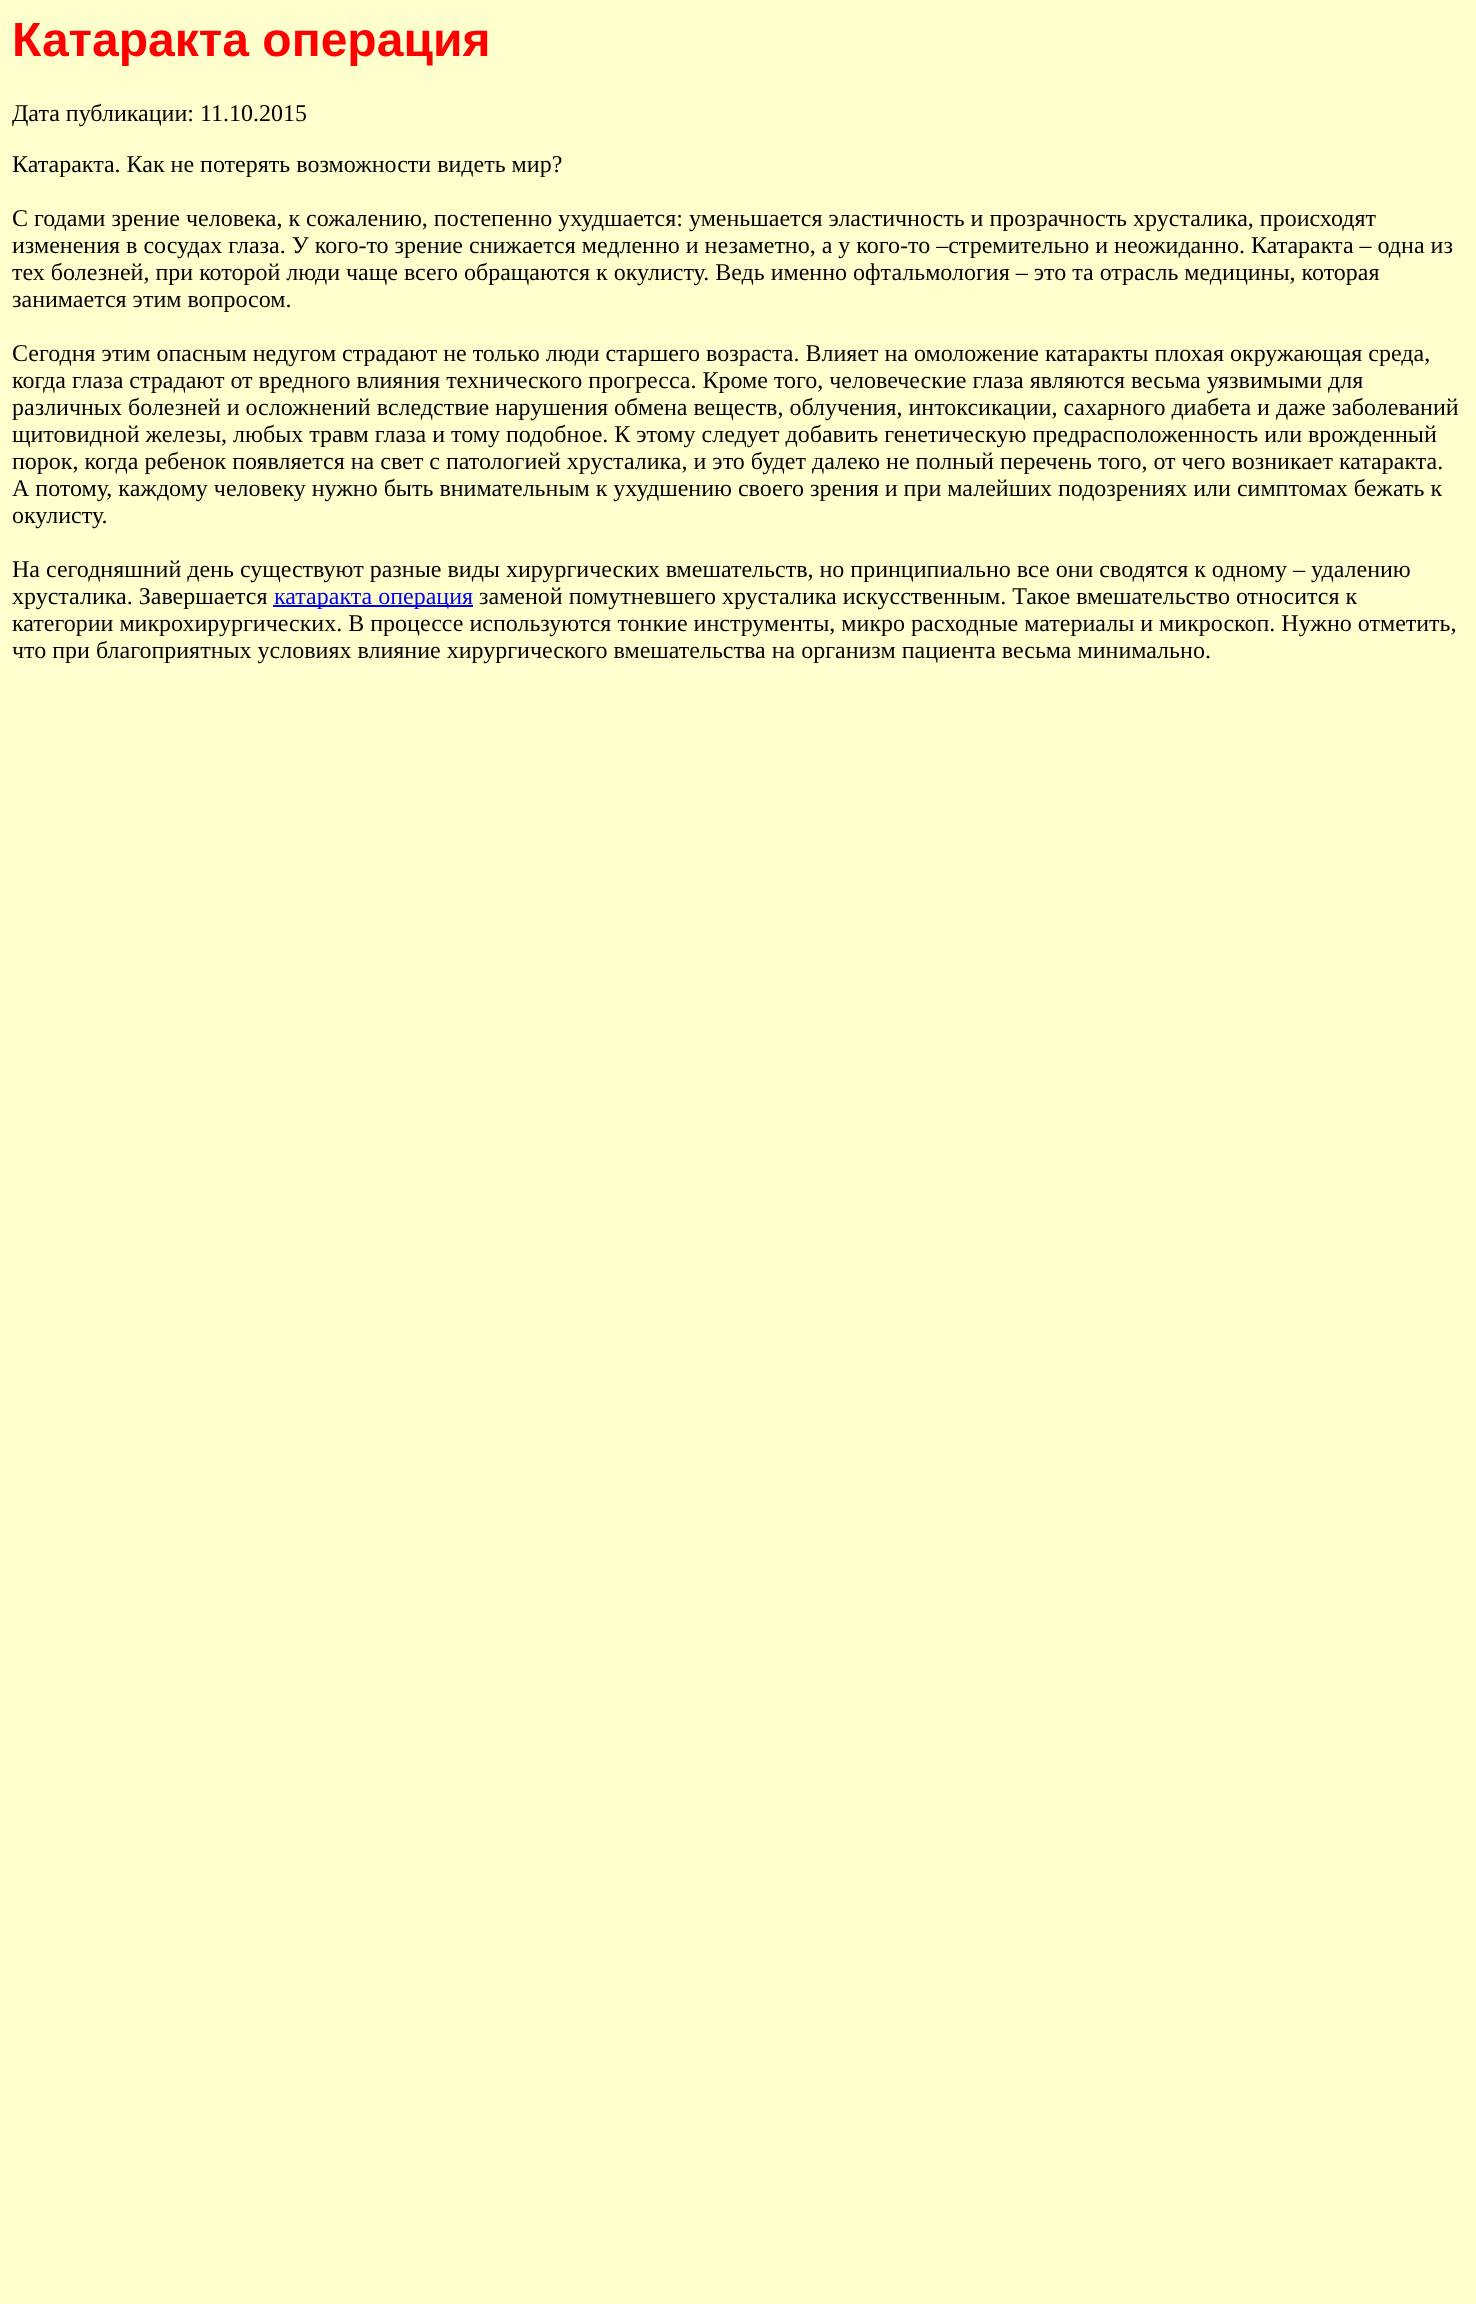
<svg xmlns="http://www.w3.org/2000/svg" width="1476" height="2304">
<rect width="100%" height="100%" fill="#ffffce"/>
<text x="12" y="56" style="font-family:Liberation Sans;font-size:48px;font-weight:bold;fill:#f00">Катаракта операция</text>
<text x="12" y="121" style="font-family:Liberation Serif;font-size:24px;fill:#000">Дата публикации: 11.10.2015</text>
<text x="12" y="172" style="font-family:Liberation Serif;font-size:24px;fill:#000">Катаракта. Как не потерять возможности видеть мир?</text>
<text x="12" y="226" style="font-family:Liberation Serif;font-size:24px;fill:#000">С годами зрение человека, к сожалению, постепенно ухудшается: уменьшается эластичность и прозрачность хрусталика, происходят</text>
<text x="12" y="253" style="font-family:Liberation Serif;font-size:24px;fill:#000">изменения в сосудах глаза. У кого-то зрение снижается медленно и незаметно, а у кого-то –стремительно и неожиданно. Катаракта – одна из</text>
<text x="12" y="280" style="font-family:Liberation Serif;font-size:24px;fill:#000">тех болезней, при которой люди чаще всего обращаются к окулисту. Ведь именно офтальмология – это та отрасль медицины, которая</text>
<text x="12" y="307" style="font-family:Liberation Serif;font-size:24px;fill:#000">занимается этим вопросом.</text>
<text x="12" y="361" style="font-family:Liberation Serif;font-size:24px;fill:#000">Сегодня этим опасным недугом страдают не только люди старшего возраста. Влияет на омоложение катаракты плохая окружающая среда,</text>
<text x="12" y="388" style="font-family:Liberation Serif;font-size:24px;fill:#000">когда глаза страдают от вредного влияния технического прогресса. Кроме того, человеческие глаза являются весьма уязвимыми для</text>
<text x="12" y="415" style="font-family:Liberation Serif;font-size:24px;fill:#000">различных болезней и осложнений вследствие нарушения обмена веществ, облучения, интоксикации, сахарного диабета и даже заболеваний</text>
<text x="12" y="442" style="font-family:Liberation Serif;font-size:24px;fill:#000">щитовидной железы, любых травм глаза и тому подобное. К этому следует добавить генетическую предрасположенность или врожденный</text>
<text x="12" y="469" style="font-family:Liberation Serif;font-size:24px;fill:#000">порок, когда ребенок появляется на свет с патологией хрусталика, и это будет далеко не полный перечень того, от чего возникает катаракта.</text>
<text x="12" y="496" style="font-family:Liberation Serif;font-size:24px;fill:#000">А потому, каждому человеку нужно быть внимательным к ухудшению своего зрения и при малейших подозрениях или симптомах бежать к</text>
<text x="12" y="523" style="font-family:Liberation Serif;font-size:24px;fill:#000">окулисту.</text>
<text x="12" y="577" style="font-family:Liberation Serif;font-size:24px;fill:#000">На сегодняшний день существуют разные виды хирургических вмешательств, но принципиально все они сводятся к одному – удалению</text>
<text x="12" y="604" style="font-family:Liberation Serif;font-size:24px;fill:#000">хрусталика. Завершается</text>
<rect x="273" y="605" width="200" height="2" fill="#00e"/>
<text x="274" y="604" style="font-family:Liberation Serif;font-size:24px;fill:#00e">катаракта операция</text>
<text x="479" y="604" style="font-family:Liberation Serif;font-size:24px;fill:#000">заменой помутневшего хрусталика искусственным. Такое вмешательство относится к</text>
<text x="12" y="631" style="font-family:Liberation Serif;font-size:24px;fill:#000">категории микрохирургических. В процессе используются тонкие инструменты, микро расходные материалы и микроскоп. Нужно отметить,</text>
<text x="12" y="658" style="font-family:Liberation Serif;font-size:24px;fill:#000">что при благоприятных условиях влияние хирургического вмешательства на организм пациента весьма минимально.</text>
</svg>
